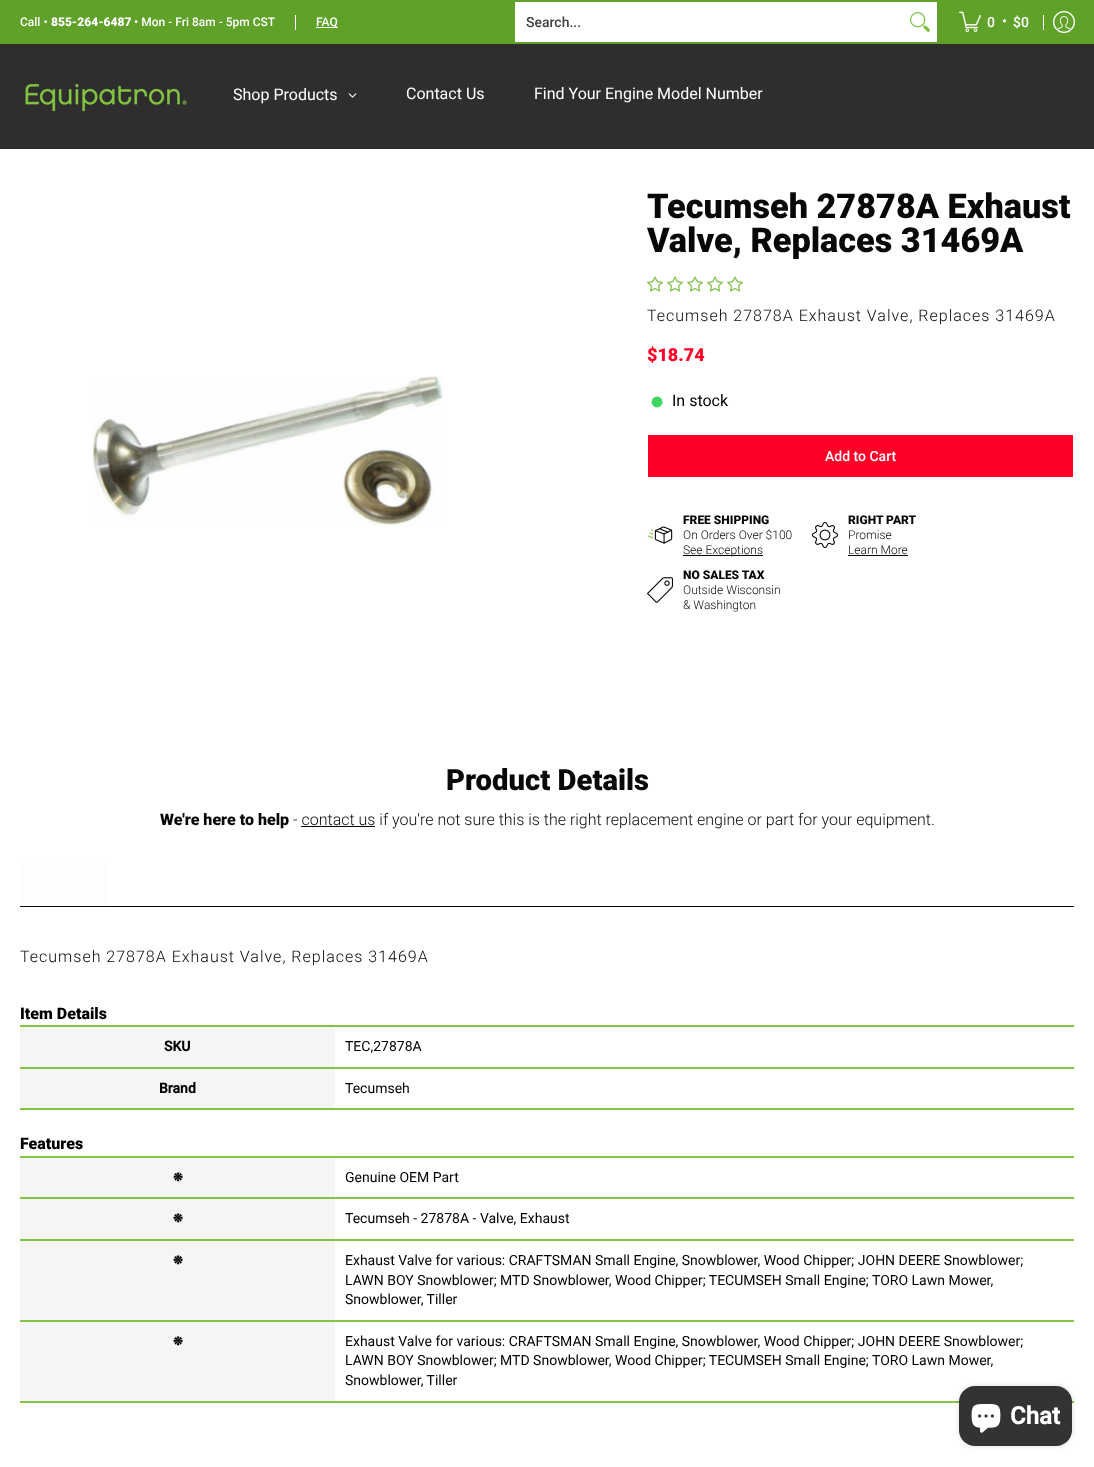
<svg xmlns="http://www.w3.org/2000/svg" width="1094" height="1467">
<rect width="100%" height="100%" fill="#fff"/>
<rect y="44" width="1094" height="105" fill="#2e2e2e"/>
<rect width="1094" height="44" fill="#5fa129"/>
<text x="20" y="26" style="font-family:Roboto;font-size:12px;font-weight:500;fill:#fff">Call •</text>
<text x="51" y="26" style="font-family:Roboto;font-size:12px;font-weight:900;fill:#fff">855-264-6487</text>
<text x="134" y="26" style="font-family:Roboto;font-size:12px;font-weight:500;fill:#fff">• Mon - Fri 8am - 5pm CST</text>
<rect x="295" y="15" width="1" height="15" fill="#fff"/>
<rect x="316" y="27" width="22" height="1" fill="#fff"/>
<text x="316" y="26" style="font-family:Roboto;font-size:12px;font-weight:500;fill:#fff">FAQ</text>
<rect x="515" y="2" width="422" height="40" fill="#fff"/>
<text x="526" y="27" style="font-family:Roboto;font-size:14px;font-weight:500;fill:#404040">Search...</text>
<image x="910" y="12" width="20" height="20" href="media/1.png"/>
<image x="959" y="11" width="22" height="22" href="media/2.png"/>
<text x="987" y="27" style="font-family:Roboto;font-size:14px;font-weight:500;fill:#fff">0</text>
<text x="1002" y="26" style="font-family:Roboto;font-size:14px;font-weight:500;fill:#fff">•</text>
<text x="1013" y="27" style="font-family:Roboto;font-size:14px;font-weight:500;fill:#fff">$0</text>
<rect x="1043" y="15" width="1" height="15" fill="#fff"/>
<image x="1053" y="11" width="22" height="22" href="media/3.png"/>
<image x="25" y="83" width="162" height="29" href="media/4.png"/>
<text x="233" y="100" style="font-family:Roboto;font-size:16px;fill:#fff">Shop Products</text>
<image x="348" y="93" width="9" height="5" href="media/5.png"/>
<text x="406" y="99" style="font-family:Roboto;font-size:16px;fill:#fff">Contact Us</text>
<text x="534" y="99" style="font-family:Roboto;font-size:16px;fill:#fff">Find Your Engine Model Number</text>
<image x="92" y="376" width="351" height="150" href="media/6.png"/>
<text x="647" y="218" style="font-family:Roboto;font-size:34.25px;font-weight:900;fill:#080808">Tecumseh 27878A Exhaust</text>
<text x="647" y="252" style="font-family:Roboto;font-size:34.25px;font-weight:900;fill:#080808">Valve, Replaces 31469A</text>
<image x="647" y="276" width="16" height="16" href="media/7.png"/>
<image x="667" y="276" width="16" height="16" href="media/7.png"/>
<image x="687" y="276" width="16" height="16" href="media/7.png"/>
<image x="707" y="276" width="16" height="16" href="media/7.png"/>
<image x="727" y="276" width="16" height="16" href="media/7.png"/>
<text x="647" y="321" style="font-family:Roboto;font-size:16px;font-weight:300;letter-spacing:1px;fill:#080808">Tecumseh 27878A Exhaust Valve, Replaces 31469A</text>
<text x="647" y="361" style="font-family:Roboto;font-size:18px;font-weight:900;fill:#ff0026">$18.74</text>
<circle cx="657" cy="402" r="5" fill="#3ed660" stroke="#3ed660"/>
<text x="672" y="406" style="font-family:Roboto;font-size:16px;fill:#000">In stock</text>
<rect x="648" y="435" width="425" height="42" fill="#ff0026"/>
<text x="825" y="461" style="font-family:Roboto;font-size:14px;font-weight:500;fill:#fff">Add to Cart</text>
<image x="647" y="526" width="26" height="18" href="media/8.png"/>
<text x="683" y="524" style="font-family:Roboto;font-size:12px;font-weight:900;fill:#080808">FREE SHIPPING</text>
<text x="683" y="539" style="font-family:Roboto;font-size:12px;font-weight:300;fill:#080808">On Orders Over $100</text>
<rect x="683" y="555" width="80" height="1" fill="#080808"/>
<text x="683" y="554" style="font-family:Roboto;font-size:12px;font-weight:300;fill:#080808">See Exceptions</text>
<image x="812" y="522" width="26" height="26" href="media/9.png"/>
<text x="848" y="524" style="font-family:Roboto;font-size:12px;font-weight:900;fill:#080808">RIGHT PART</text>
<text x="848" y="539" style="font-family:Roboto;font-size:12px;font-weight:300;fill:#080808">Promise</text>
<text x="848" y="554" style="font-family:Roboto;font-size:12px;font-weight:300;fill:#080808">Learn More</text>
<rect x="848" y="555" width="60" height="1" fill="#080808"/>
<image x="647" y="577" width="26" height="26" href="media/10.png"/>
<text x="683" y="579" style="font-family:Roboto;font-size:12px;font-weight:900;fill:#080808">NO SALES TAX</text>
<text x="683" y="594" style="font-family:Roboto;font-size:12px;font-weight:300;fill:#080808">Outside Wisconsin</text>
<text x="683" y="609" style="font-family:Roboto;font-size:12px;font-weight:300;fill:#080808">&amp; Washington</text>
<text x="446" y="790" style="font-family:Roboto;font-size:29.25px;font-weight:900;fill:#080808">Product Details</text>
<text x="160" y="825" style="font-family:Roboto;font-size:16px;font-weight:900;fill:#080808">We're here to help</text>
<text x="293" y="825" style="font-family:Roboto;font-size:16px;font-weight:300;fill:#080808">- contact us if you're not sure this is the right replacement engine or part for your equipment.</text>
<rect x="301" y="826" width="74" height="1" fill="#080808"/>
<rect x="21" y="862" width="87" height="43" fill="#fffcfd"/>
<rect x="20" y="906" width="1054" height="1" fill="#080808"/>
<text x="20" y="962" style="font-family:Roboto;font-size:16px;font-weight:300;letter-spacing:1px;fill:#080808">Tecumseh 27878A Exhaust Valve, Replaces 31469A</text>
<text x="20" y="1019" style="font-family:Roboto;font-size:16px;font-weight:900;fill:#000">Item Details</text>
<rect x="20" y="1027" width="315" height="40" fill="#f5f5f5"/>
<rect x="20" y="1025" width="1054" height="2" fill="#83c441"/>
<text x="164" y="1051" style="font-family:Roboto;font-size:14px;font-weight:bold;fill:#000">SKU</text>
<rect x="20" y="1067" width="1054" height="2" fill="#83c441"/>
<text x="345" y="1051" style="font-family:Roboto;font-size:14px;fill:#000">TEC,27878A</text>
<rect x="20" y="1108" width="1054" height="2" fill="#83c441"/>
<rect x="20" y="1069" width="315" height="39" fill="#f5f5f5"/>
<text x="159" y="1093" style="font-family:Roboto;font-size:14px;font-weight:bold;fill:#000">Brand</text>
<text x="345" y="1093" style="font-family:Roboto;font-size:14px;fill:#000">Tecumseh</text>
<text x="20" y="1149" style="font-family:Roboto;font-size:16px;font-weight:900;fill:#000">Features</text>
<rect x="20" y="1158" width="315" height="39" fill="#f5f5f5"/>
<rect x="20" y="1156" width="1054" height="2" fill="#83c441"/>
<text x="173" y="1182" style="font-family:Noto Sans Math;font-size:14px;font-weight:bold;fill:#000">🞽</text>
<rect x="20" y="1197" width="1054" height="2" fill="#83c441"/>
<text x="345" y="1182" style="font-family:Roboto;font-size:14px;fill:#000">Genuine OEM Part</text>
<rect x="20" y="1199" width="315" height="40" fill="#f5f5f5"/>
<text x="173" y="1223" style="font-family:Noto Sans Math;font-size:14px;font-weight:bold;fill:#000">🞽</text>
<rect x="20" y="1239" width="1054" height="2" fill="#83c441"/>
<text x="345" y="1223" style="font-family:Roboto;font-size:14px;fill:#000">Tecumseh - 27878A - Valve, Exhaust</text>
<rect x="20" y="1241" width="315" height="79" fill="#f5f5f5"/>
<text x="173" y="1265" style="font-family:Noto Sans Math;font-size:14px;font-weight:bold;fill:#000">🞽</text>
<rect x="20" y="1320" width="1054" height="2" fill="#83c441"/>
<text x="345" y="1265" style="font-family:Roboto;font-size:14px;fill:#000">Exhaust Valve for various: CRAFTSMAN Small Engine, Snowblower, Wood Chipper; JOHN DEERE Snowblower;</text>
<text x="345" y="1285" style="font-family:Roboto;font-size:14px;fill:#000">LAWN BOY Snowblower; MTD Snowblower, Wood Chipper; TECUMSEH Small Engine; TORO Lawn Mower,</text>
<text x="345" y="1304" style="font-family:Roboto;font-size:14px;fill:#000">Snowblower, Tiller</text>
<rect x="20" y="1401" width="1054" height="2" fill="#83c441"/>
<rect x="20" y="1322" width="315" height="79" fill="#f5f5f5"/>
<text x="173" y="1346" style="font-family:Noto Sans Math;font-size:14px;font-weight:bold;fill:#000">🞽</text>
<text x="345" y="1346" style="font-family:Roboto;font-size:14px;fill:#000">Exhaust Valve for various: CRAFTSMAN Small Engine, Snowblower, Wood Chipper; JOHN DEERE Snowblower;</text>
<text x="345" y="1365" style="font-family:Roboto;font-size:14px;fill:#000">LAWN BOY Snowblower; MTD Snowblower, Wood Chipper; TECUMSEH Small Engine; TORO Lawn Mower,</text>
<text x="345" y="1385" style="font-family:Roboto;font-size:14px;fill:#000">Snowblower, Tiller</text>
<rect x="959" y="1386" width="113" height="60" rx="16" fill="#00000026" filter="blur(2.5px)"/>
<rect x="959" y="1386" width="113" height="60" rx="16" fill="#333"/>
<image x="971" y="1404" width="30" height="29" href="media/11.png"/>
<text x="1010" y="1424" style="font-family:Roboto;font-size:24px;font-weight:bold;fill:#fff">Chat</text>
</svg>
